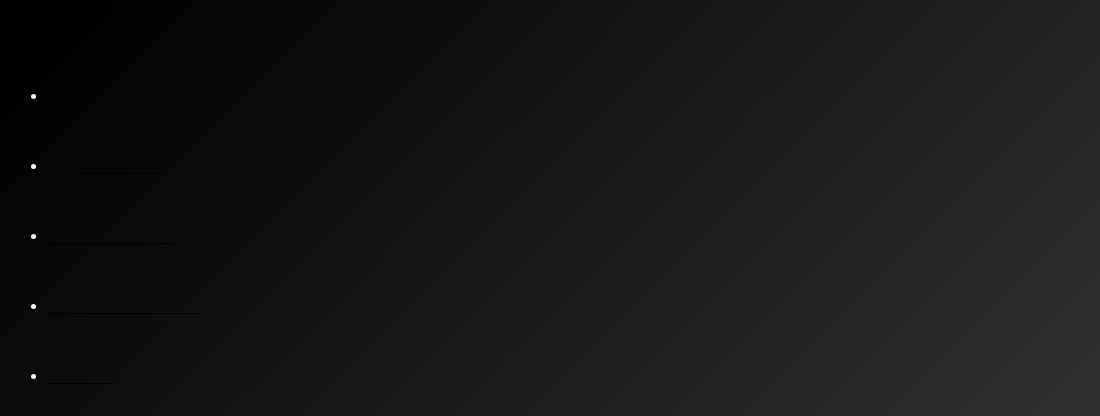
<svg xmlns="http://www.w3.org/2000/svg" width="1100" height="416">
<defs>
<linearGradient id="g1" gradientUnits="userSpaceOnUse" x1="13" y1="-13" x2="1087" y2="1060"><stop offset="0.03" stop-color="#000"/><stop offset="1" stop-color="#474648"/></linearGradient>
</defs>
<rect width="100%" height="100%" fill="#fff"/>
<rect width="1100" height="416" fill="url(#g1)"/>
<circle cx="33.5" cy="96.5" r="2.5" fill="#fff"/>
<rect x="48" y="103" width="40" height="1" fill="#000"/>
<circle cx="33.5" cy="166.5" r="2.5" fill="#fff"/>
<rect x="48" y="173" width="110" height="1" fill="#000"/>
<circle cx="33.5" cy="236.5" r="2.5" fill="#fff"/>
<rect x="48" y="243" width="126" height="1" fill="#000"/>
<circle cx="33.5" cy="306.5" r="2.5" fill="#fff"/>
<rect x="48" y="313" width="152" height="1" fill="#000"/>
<circle cx="33.5" cy="376.5" r="2.5" fill="#fff"/>
<rect x="48" y="383" width="66" height="1" fill="#000"/>
</svg>
